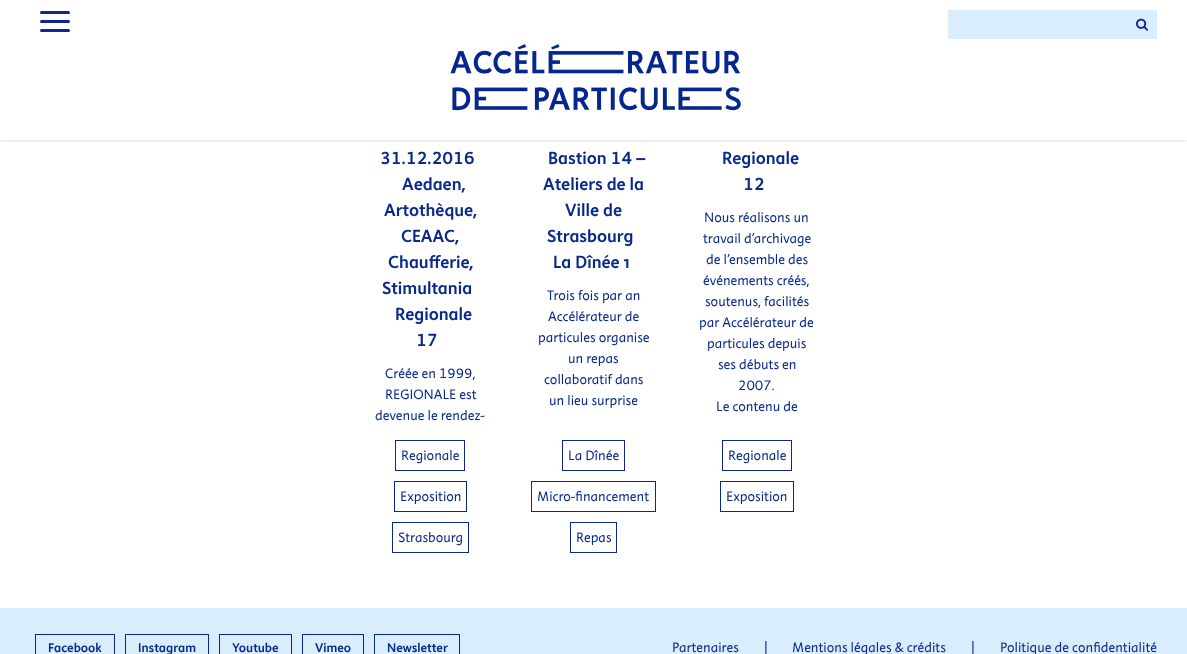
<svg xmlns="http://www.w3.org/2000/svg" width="1187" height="654">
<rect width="100%" height="100%" fill="#fff"/>
<rect y="1" width="1187" height="140" fill="#0000001f" filter="blur(1.5px)"/>
<rect width="1187" height="140" fill="#fff"/>
<rect x="40" y="11" width="30" height="3" rx="1.5" fill="#092a8a"/>
<rect x="40" y="20" width="30" height="3" rx="1.5" fill="#092a8a"/>
<rect x="40" y="29" width="30" height="3" rx="1.5" fill="#092a8a"/>
<rect x="948" y="10" width="209" height="29" fill="#daedfd"/>
<image x="1136" y="18" width="12" height="13" href="media/1.png"/>
<image x="450" y="44" width="291" height="67" href="media/2.png"/>
<text x="380" y="164" style="font-family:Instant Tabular;font-size:18px;font-weight:bold;fill:#092a8a">31.12.2016</text>
<text x="402" y="190" style="font-family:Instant;font-size:18px;font-weight:bold;fill:#092a8a">Aedaen,</text>
<text x="384" y="216" style="font-family:Instant;font-size:18px;font-weight:bold;fill:#092a8a">Artothèque,</text>
<text x="401" y="242" style="font-family:Instant;font-size:18px;font-weight:bold;fill:#092a8a">CEAAC,</text>
<text x="388" y="268" style="font-family:Instant;font-size:18px;font-weight:bold;fill:#092a8a">Chaufferie,</text>
<text x="382" y="294" style="font-family:Instant;font-size:18px;font-weight:bold;fill:#092a8a">Stimultania</text>
<text x="395" y="320" style="font-family:Instant;font-size:18px;font-weight:bold;fill:#092a8a">Regionale</text>
<text x="416" y="346" style="font-family:Instant Tabular;font-size:18px;font-weight:bold;fill:#092a8a">17</text>
<text x="385" y="378" style="font-family:Instant Tabular;font-size:14px;fill:#092a8a">Créée en 1999,</text>
<text x="385" y="399" style="font-family:Instant;font-size:14px;fill:#092a8a">REGIONALE est</text>
<text x="375" y="420" style="font-family:Instant;font-size:14px;fill:#092a8a">devenue le rendez-</text>
<rect x="395.5" y="440.5" width="69" height="30" fill="none" stroke="#092a8a"/>
<text x="401" y="460" style="font-family:Instant;font-size:14px;fill:#092a8a">Regionale</text>
<rect x="394.5" y="481.5" width="72" height="30" fill="none" stroke="#092a8a"/>
<text x="400" y="501" style="font-family:Instant;font-size:14px;fill:#092a8a">Exposition</text>
<rect x="392.5" y="522.5" width="76" height="30" fill="none" stroke="#092a8a"/>
<text x="398" y="542" style="font-family:Instant;font-size:14px;fill:#092a8a">Strasbourg</text>
<text x="548" y="164" style="font-family:Instant Tabular;font-size:18px;font-weight:bold;fill:#092a8a">Bastion 14 –</text>
<text x="543" y="190" style="font-family:Instant;font-size:18px;font-weight:bold;fill:#092a8a">Ateliers de la</text>
<text x="565" y="216" style="font-family:Instant;font-size:18px;font-weight:bold;fill:#092a8a">Ville de</text>
<text x="547" y="242" style="font-family:Instant;font-size:18px;font-weight:bold;fill:#092a8a">Strasbourg</text>
<text x="553" y="268" style="font-family:Instant;font-size:18px;font-weight:bold;fill:#092a8a">La Dînée 1</text>
<text x="547" y="300" style="font-family:Instant;font-size:14px;fill:#092a8a">Trois fois par an</text>
<text x="548" y="321" style="font-family:Instant;font-size:14px;fill:#092a8a">Accélérateur de</text>
<text x="538" y="342" style="font-family:Instant;font-size:14px;fill:#092a8a">particules organise</text>
<text x="568" y="363" style="font-family:Instant;font-size:14px;fill:#092a8a">un repas</text>
<text x="544" y="384" style="font-family:Instant;font-size:14px;fill:#092a8a">collaboratif dans</text>
<text x="549" y="405" style="font-family:Instant;font-size:14px;fill:#092a8a">un lieu surprise</text>
<rect x="562.5" y="440.5" width="62" height="30" fill="none" stroke="#092a8a"/>
<text x="568" y="460" style="font-family:Instant;font-size:14px;fill:#092a8a">La Dînée</text>
<rect x="531.5" y="481.5" width="124" height="30" fill="none" stroke="#092a8a"/>
<text x="537" y="501" style="font-family:Instant;font-size:14px;fill:#092a8a">Micro-financement</text>
<rect x="570.5" y="522.5" width="46" height="30" fill="none" stroke="#092a8a"/>
<text x="576" y="542" style="font-family:Instant;font-size:14px;fill:#092a8a">Repas</text>
<text x="722" y="164" style="font-family:Instant;font-size:18px;font-weight:bold;fill:#092a8a">Regionale</text>
<text x="743" y="190" style="font-family:Instant Tabular;font-size:18px;font-weight:bold;fill:#092a8a">12</text>
<text x="704" y="222" style="font-family:Instant;font-size:14px;fill:#092a8a">Nous réalisons un</text>
<text x="703" y="243" style="font-family:Instant;font-size:14px;fill:#092a8a">travail d’archivage</text>
<text x="706" y="264" style="font-family:Instant;font-size:14px;fill:#092a8a">de l’ensemble des</text>
<text x="703" y="285" style="font-family:Instant;font-size:14px;fill:#092a8a">événements créés,</text>
<text x="705" y="306" style="font-family:Instant;font-size:14px;fill:#092a8a">soutenus, facilités</text>
<text x="699" y="327" style="font-family:Instant;font-size:14px;fill:#092a8a">par Accélérateur de</text>
<text x="707" y="348" style="font-family:Instant;font-size:14px;fill:#092a8a">particules depuis</text>
<text x="718" y="369" style="font-family:Instant;font-size:14px;fill:#092a8a">ses débuts en</text>
<text x="738" y="390" style="font-family:Instant Tabular;font-size:14px;fill:#092a8a">2007.</text>
<text x="716" y="411" style="font-family:Instant;font-size:14px;fill:#092a8a">Le contenu de</text>
<rect x="722.5" y="440.5" width="69" height="30" fill="none" stroke="#092a8a"/>
<text x="728" y="460" style="font-family:Instant;font-size:14px;fill:#092a8a">Regionale</text>
<rect x="720.5" y="481.5" width="73" height="30" fill="none" stroke="#092a8a"/>
<text x="726" y="501" style="font-family:Instant;font-size:14px;fill:#092a8a">Exposition</text>
<rect y="608" width="1187" height="46" fill="#daedfd"/>
<rect x="35.5" y="634.5" width="79" height="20" fill="none" stroke="#092a8a"/>
<text x="48" y="652" style="font-family:Instant;font-size:13px;font-weight:bold;fill:#092a8a">Facebook</text>
<rect x="125.5" y="634.5" width="83" height="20" fill="none" stroke="#092a8a"/>
<text x="138" y="652" style="font-family:Instant;font-size:13px;font-weight:bold;fill:#092a8a">Instagram</text>
<rect x="219.5" y="634.5" width="72" height="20" fill="none" stroke="#092a8a"/>
<text x="232" y="652" style="font-family:Instant;font-size:13px;font-weight:bold;fill:#092a8a">Youtube</text>
<rect x="302.5" y="634.5" width="61" height="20" fill="none" stroke="#092a8a"/>
<text x="315" y="652" style="font-family:Instant;font-size:13px;font-weight:bold;fill:#092a8a">Vimeo</text>
<rect x="374.5" y="634.5" width="85" height="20" fill="none" stroke="#092a8a"/>
<text x="387" y="652" style="font-family:Instant;font-size:13px;font-weight:bold;fill:#092a8a">Newsletter</text>
<text x="672" y="652" style="font-family:Instant;font-size:14px;fill:#092a8a">Partenaires</text>
<text x="764" y="652" style="font-family:Instant;font-size:14px;fill:#092a8a">|</text>
<text x="792" y="652" style="font-family:Instant;font-size:14px;fill:#092a8a">Mentions légales &amp; crédits</text>
<text x="971" y="652" style="font-family:Instant;font-size:14px;fill:#092a8a">|</text>
<text x="1000" y="652" style="font-family:Instant;font-size:14px;fill:#092a8a">Politique de confidentialité</text>
</svg>
